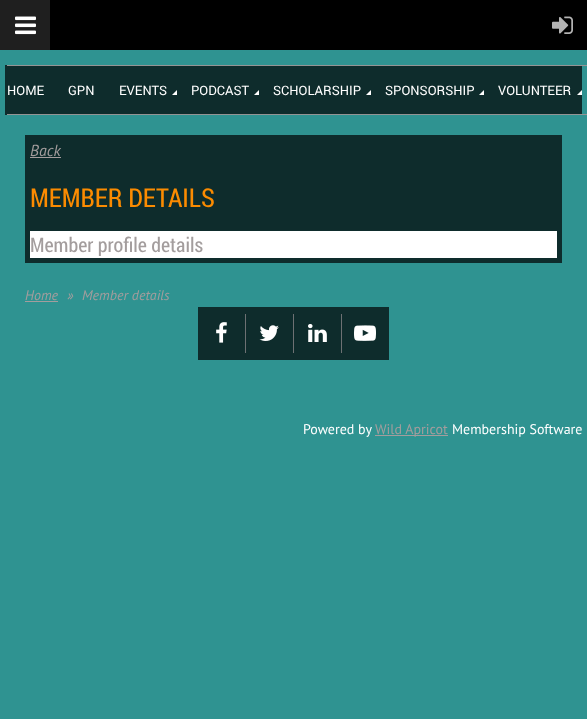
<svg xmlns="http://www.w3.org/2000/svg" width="587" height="719">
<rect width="100%" height="100%" fill="#2f9391"/>
<rect x="50" width="537" height="50" fill="#000"/>
<rect width="50" height="50" fill="#1f1f1f"/>
<image x="15" y="16" width="21" height="19" href="media/1.png"/>
<image x="552" y="16" width="21" height="18" href="media/2.png"/>
<rect x="5" y="65" width="577" height="50" fill="#0e2c2c"/>
<rect x="7" y="65" width="580" height="1" fill="#949494"/>
<rect x="7" y="114" width="580" height="1" fill="#949494"/>
<text x="7" y="95" style="font-family:Roboto;font-size:13px;fill:#fff">HOME</text>
<text x="68" y="95" style="font-family:Roboto;font-size:13px;fill:#fff">GPN</text>
<text x="119" y="95" style="font-family:Roboto;font-size:13px;fill:#fff">EVENTS</text>
<path d="M177 95h-5l5-5z" fill="#fff"/>
<text x="191" y="95" style="font-family:Roboto;font-size:13px;fill:#fff">PODCAST</text>
<path d="M259 95h-5l5-5z" fill="#fff"/>
<text x="273" y="95" style="font-family:Roboto;font-size:13px;fill:#fff">SCHOLARSHIP</text>
<path d="M371 95h-5l5-5z" fill="#fff"/>
<text x="385" y="95" style="font-family:Roboto;font-size:13px;fill:#fff">SPONSORSHIP</text>
<path d="M484 95h-5l5-5z" fill="#fff"/>
<text x="498" y="95" style="font-family:Roboto;font-size:13px;fill:#fff">VOLUNTEER</text>
<path d="M582 95h-5l5-5z" fill="#fff"/>
<rect x="25" y="135" width="537" height="128" fill="#0e2c2c"/>
<text x="30" y="156" style="font-family:PT Sans;font-size:16px;font-style:italic;fill:#a39d9d">Back</text>
<rect x="30" y="157" width="31" height="1" fill="#a39d9d"/>
<text x="30" y="207" style="font-family:Roboto Condensed;font-size:26px;fill:#fb8b01">MEMBER DETAILS</text>
<rect x="30" y="231" width="527" height="27" fill="#fff"/>
<text x="30" y="252" style="font-family:Roboto Condensed;font-size:20px;fill:#a39d9d">Member profile details</text>
<text x="25" y="300" style="font-family:PT Sans;font-size:14px;font-style:italic;fill:#a39d9d">Home</text>
<rect x="25" y="301" width="33" height="1" fill="#a39d9d"/>
<text x="67" y="300" style="font-family:PT Sans;font-size:14px;font-style:italic;fill:#a39d9d">»</text>
<text x="82" y="300" style="font-family:PT Sans;font-size:14px;font-style:italic;fill:#a39d9d">Member details</text>
<rect x="198" y="307" width="191" height="53" fill="#0e2c2c"/>
<rect x="245" y="314" width="1" height="39" fill="#6d7173"/>
<image x="216" y="322" width="11" height="21" href="media/3.png"/>
<rect x="293" y="314" width="1" height="39" fill="#6d7173"/>
<image x="259" y="325" width="20" height="16" href="media/4.png"/>
<rect x="341" y="314" width="1" height="39" fill="#6d7173"/>
<image x="308" y="324" width="19" height="18" href="media/5.png"/>
<image x="354" y="325" width="22" height="16" href="media/6.png"/>
<text x="303" y="434" style="font-family:PT Sans;font-size:14px;fill:#fff">Powered by</text>
<rect x="375" y="435" width="73" height="1" fill="#a39d9d"/>
<text x="375" y="434" style="font-family:PT Sans;font-size:14px;fill:#a39d9d">Wild Apricot</text>
<text x="452" y="434" style="font-family:PT Sans;font-size:14px;fill:#fff">Membership Software</text>
</svg>
